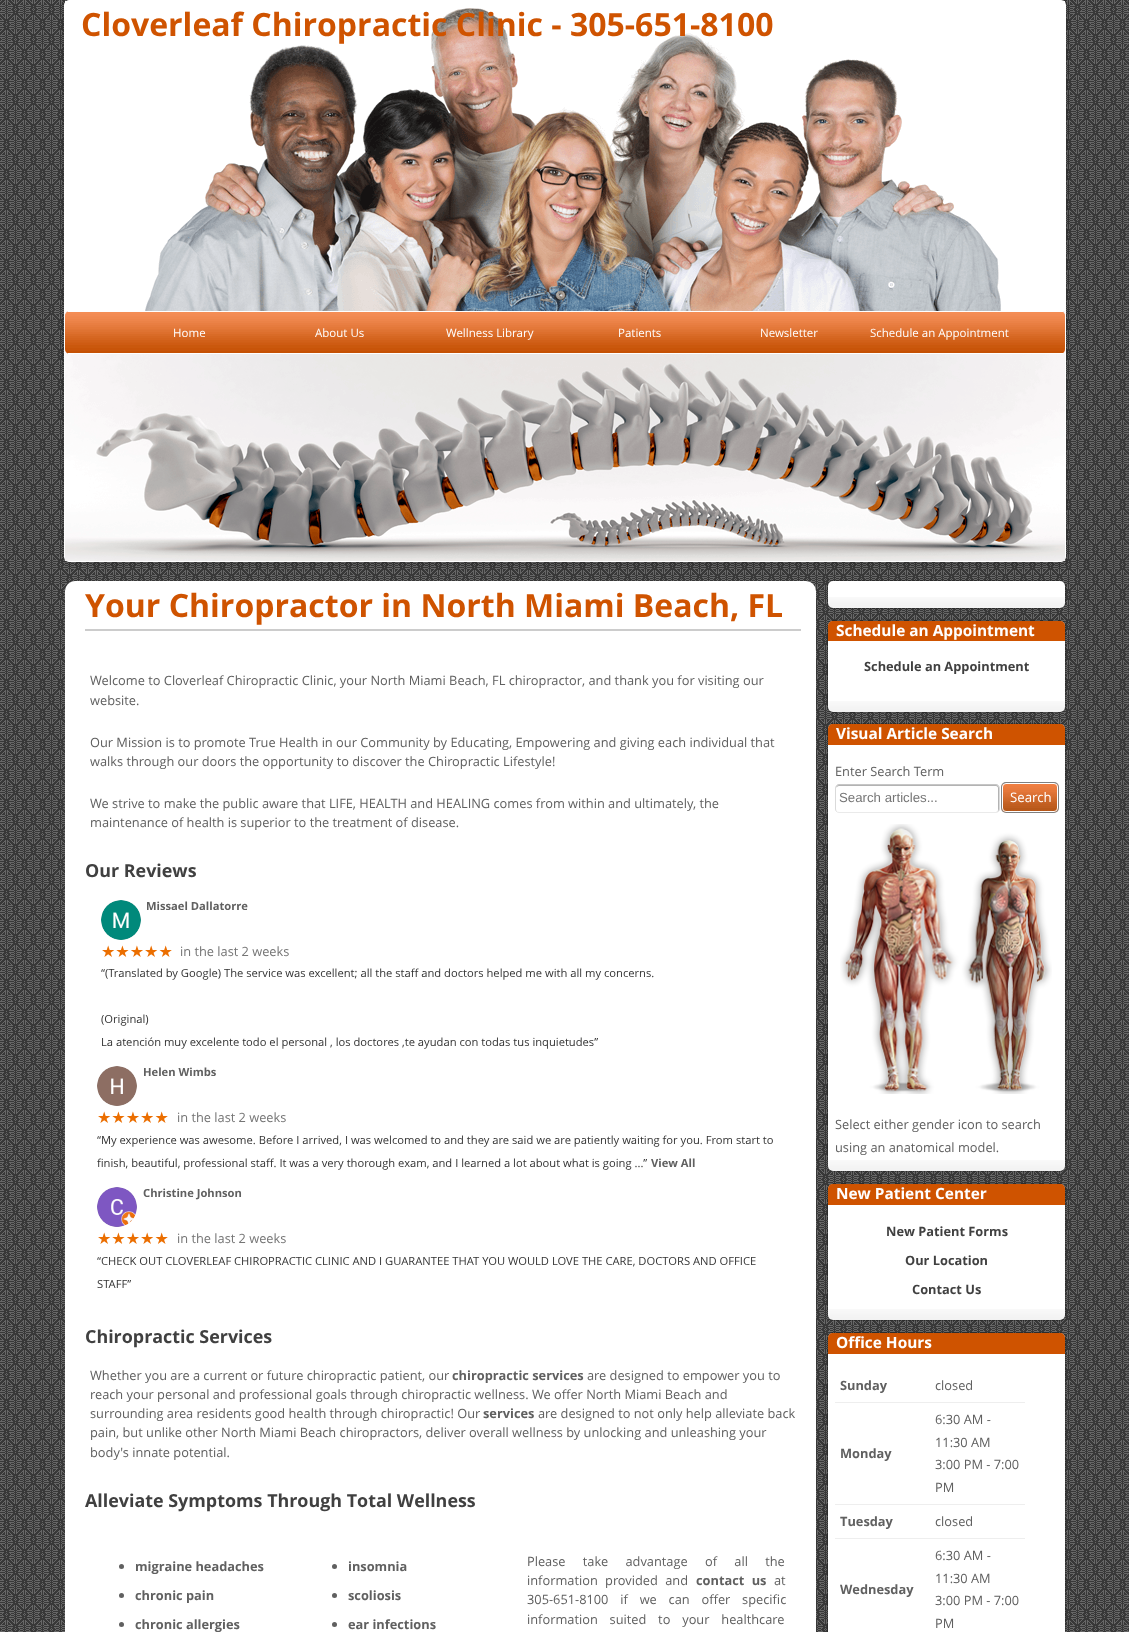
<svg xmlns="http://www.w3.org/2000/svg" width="1129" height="1632">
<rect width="100%" height="100%" fill="#fff"/>
<image x="0" y="0" width="1129" height="1632" href="media/1.png"/>
<rect x="61" y="-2" width="1008" height="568" rx="8" fill="#0000001a" filter="blur(1px)"/>
<rect x="64.5" y="0.5" width="1001" height="561" rx="4.5" fill="none" stroke="#fff"/>
<rect x="65" y="1" width="1000" height="310" fill="#fff"/>
<image x="145" y="8" width="856" height="303" href="media/2.png"/>
<text x="81" y="36" style="font-family:Open Sans;font-size:32px;font-weight:bold;fill:#cf5300">Cloverleaf Chiropractic Clinic - 305-651-8100</text>
<image x="65" y="311" width="1000" height="250" href="media/3.png"/>
<rect x="65" y="311" width="1000" height="43" rx="5" fill="#ea9577d4"/>
<image x="65" y="312" width="1000" height="42" href="media/4.png"/>
<rect x="68" y="311" width="995" height="1" fill="#fff"/>
<rect x="68" y="353" width="995" height="1" fill="#fff"/>
<text x="173" y="337" style="font-family:Open Sans;font-size:11.5px;fill:#fff">Home</text>
<text x="315" y="337" style="font-family:Open Sans;font-size:11.5px;fill:#fff">About Us</text>
<text x="446" y="337" style="font-family:Open Sans;font-size:11.5px;fill:#fff">Wellness Library</text>
<text x="618" y="337" style="font-family:Open Sans;font-size:11.5px;fill:#fff">Patients</text>
<text x="760" y="337" style="font-family:Open Sans;font-size:11.5px;fill:#fff">Newsletter</text>
<text x="870" y="337" style="font-family:Open Sans;font-size:11.5px;fill:#fff">Schedule an Appointment</text>
<rect x="65" y="581" width="751" height="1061" rx="10" fill="#fff"/>
<rect x="85" y="629" width="716" height="2" fill="#ccc"/>
<text x="85" y="617" style="font-family:Open Sans;font-size:32px;font-weight:bold;fill:#cf5300">Your Chiropractor in North Miami Beach, FL</text>
<text x="90" y="685" style="font-family:Open Sans;font-size:12.8px;fill:#606060">Welcome to Cloverleaf Chiropractic Clinic, your North Miami Beach, FL chiropractor, and thank you for visiting our</text>
<text x="90" y="705" style="font-family:Open Sans;font-size:12.8px;fill:#606060">website.</text>
<text x="90" y="747" style="font-family:Open Sans;font-size:12.8px;fill:#606060">Our Mission is to promote True Health in our Community by Educating, Empowering and giving each individual that</text>
<text x="90" y="766" style="font-family:Open Sans;font-size:12.8px;fill:#606060">walks through our doors the opportunity to discover the Chiropractic Lifestyle!</text>
<text x="90" y="808" style="font-family:Open Sans;font-size:12.8px;fill:#606060">We strive to make the public aware that LIFE, HEALTH and HEALING comes from within and ultimately, the</text>
<text x="90" y="827" style="font-family:Open Sans;font-size:12.8px;fill:#606060">maintenance of health is superior to the treatment of disease.</text>
<text x="85" y="877" style="font-family:Open Sans;font-size:17.9px;font-weight:bold;fill:#404040">Our Reviews</text>
<image x="101" y="900" width="40" height="40" href="media/5.png"/>
<text x="146" y="910" style="font-family:Open Sans;font-size:11.2px;font-weight:bold;fill:#606060">Missael Dallatorre</text>
<text x="101" y="957" style="font-family:DejaVu Sans;font-size:16px;fill:#eb6e00">★★★★★</text>
<text x="180" y="956" style="font-family:Open Sans;font-size:12.8px;fill:#757575">in the last 2 weeks</text>
<text x="101" y="977" style="font-family:Open Sans;font-size:11.2px;fill:#333">“(Translated by Google) The service was excellent; all the staff and doctors helped me with all my concerns.</text>
<text x="101" y="1023" style="font-family:Open Sans;font-size:11.2px;fill:#333">(Original)</text>
<text x="101" y="1046" style="font-family:Open Sans;font-size:11.2px;fill:#333">La atención muy excelente todo el personal , los doctores ,te ayudan con todas tus inquietudes”</text>
<image x="97" y="1066" width="40" height="40" href="media/6.png"/>
<text x="143" y="1076" style="font-family:Open Sans;font-size:11.2px;font-weight:bold;fill:#606060">Helen Wimbs</text>
<text x="97" y="1123" style="font-family:DejaVu Sans;font-size:16px;fill:#eb6e00">★★★★★</text>
<text x="177" y="1122" style="font-family:Open Sans;font-size:12.8px;fill:#757575">in the last 2 weeks</text>
<text x="97" y="1144" style="font-family:Open Sans;font-size:11.2px;fill:#333">“My experience was awesome. Before I arrived, I was welcomed to and they are said we are patiently waiting for you. From start to</text>
<text x="97" y="1167" style="font-family:Open Sans;font-size:11.2px;fill:#333">finish, beautiful, professional staff. It was a very thorough exam, and I learned a lot about what is going ...”</text>
<text x="651" y="1167" style="font-family:Open Sans;font-size:11.2px;font-weight:bold;fill:#606060">View All</text>
<image x="97" y="1187" width="40" height="40" href="media/7.png"/>
<text x="143" y="1197" style="font-family:Open Sans;font-size:11.2px;font-weight:bold;fill:#606060">Christine Johnson</text>
<text x="97" y="1244" style="font-family:DejaVu Sans;font-size:16px;fill:#eb6e00">★★★★★</text>
<text x="177" y="1243" style="font-family:Open Sans;font-size:12.8px;fill:#757575">in the last 2 weeks</text>
<text x="97" y="1265" style="font-family:Open Sans;font-size:11.2px;fill:#333">“CHECK OUT CLOVERLEAF CHIROPRACTIC CLINIC AND I GUARANTEE THAT YOU WOULD LOVE THE CARE, DOCTORS AND OFFICE</text>
<text x="97" y="1288" style="font-family:Open Sans;font-size:11.2px;fill:#333">STAFF”</text>
<text x="85" y="1343" style="font-family:Open Sans;font-size:17.9px;font-weight:bold;fill:#404040">Chiropractic Services</text>
<text x="90" y="1380" style="font-family:Open Sans;font-size:12.8px;fill:#606060">Whether you are a current or future chiropractic patient, our</text>
<text x="452" y="1380" style="font-family:Open Sans;font-size:12.8px;font-weight:bold;fill:#606060">chiropractic services</text>
<text x="587" y="1380" style="font-family:Open Sans;font-size:12.8px;fill:#606060">are designed to empower you to</text>
<text x="90" y="1399" style="font-family:Open Sans;font-size:12.8px;fill:#606060">reach your personal and professional goals through chiropractic wellness. We offer North Miami Beach and</text>
<text x="90" y="1418" style="font-family:Open Sans;font-size:12.8px;fill:#606060">surrounding area residents good health through chiropractic! Our</text>
<text x="483" y="1418" style="font-family:Open Sans;font-size:12.8px;font-weight:bold;fill:#606060">services</text>
<text x="538" y="1418" style="font-family:Open Sans;font-size:12.8px;fill:#606060">are designed to not only help alleviate back</text>
<text x="90" y="1437" style="font-family:Open Sans;font-size:12.8px;fill:#606060">pain, but unlike other North Miami Beach chiropractors, deliver overall wellness by unlocking and unleashing your</text>
<text x="90" y="1457" style="font-family:Open Sans;font-size:12.8px;fill:#606060">body's innate potential.</text>
<text x="85" y="1507" style="font-family:Open Sans;font-size:17.9px;font-weight:bold;fill:#404040">Alleviate Symptoms Through Total Wellness</text>
<circle cx="121.5" cy="1566.5" r="2.5" fill="#606060"/>
<text x="135" y="1571" style="font-family:Open Sans;font-size:12.8px;font-weight:bold;fill:#606060">migraine headaches</text>
<circle cx="121.5" cy="1595.5" r="2.5" fill="#606060"/>
<text x="135" y="1600" style="font-family:Open Sans;font-size:12.8px;font-weight:bold;fill:#606060">chronic pain</text>
<circle cx="121.5" cy="1624.5" r="2.5" fill="#606060"/>
<text x="135" y="1629" style="font-family:Open Sans;font-size:12.8px;font-weight:bold;fill:#606060">chronic allergies</text>
<circle cx="334.5" cy="1566.5" r="2.5" fill="#606060"/>
<text x="348" y="1571" style="font-family:Open Sans;font-size:12.8px;font-weight:bold;fill:#606060">insomnia</text>
<circle cx="334.5" cy="1595.5" r="2.5" fill="#606060"/>
<text x="348" y="1600" style="font-family:Open Sans;font-size:12.8px;font-weight:bold;fill:#606060">scoliosis</text>
<circle cx="334.5" cy="1624.5" r="2.5" fill="#606060"/>
<text x="348" y="1629" style="font-family:Open Sans;font-size:12.8px;font-weight:bold;fill:#606060">ear infections</text>
<text x="527" y="1566" word-spacing="14" style="font-family:Open Sans;font-size:12.8px;fill:#606060">Please take advantage of all the</text>
<text x="527" y="1585" word-spacing="4" style="font-family:Open Sans;font-size:12.8px;fill:#606060">information provided and</text>
<text x="696" y="1585" word-spacing="4" style="font-family:Open Sans;font-size:12.8px;font-weight:bold;fill:#606060">contact us</text>
<text x="774" y="1585" style="font-family:Open Sans;font-size:12.8px;fill:#606060">at</text>
<text x="527" y="1604" word-spacing="8.5" style="font-family:Open Sans;font-size:12.8px;fill:#606060">305-651-8100 if we can offer specific</text>
<text x="527" y="1624" word-spacing="8.5" style="font-family:Open Sans;font-size:12.8px;fill:#606060">information suited to your healthcare</text>
<rect x="827" y="580" width="239" height="29" rx="6" fill="#00000033" filter="blur(0.5px)"/>
<rect x="828" y="581" width="237" height="27" rx="5" fill="#fff"/>
<image x="828" y="597" width="237" height="11" href="media/8.png"/>
<rect x="827" y="620" width="239" height="93" rx="6" fill="#00000033" filter="blur(0.5px)"/>
<rect x="828" y="621" width="237" height="91" rx="5" fill="#fff"/>
<path d="M833 621h227c3 0 5 2 5 5v15h-237v-15c0-3 2-5 5-5z" fill="#cf5300"/>
<text x="836" y="636" style="font-family:Open Sans;font-size:15.4px;font-weight:bold;fill:#fff">Schedule an Appointment</text>
<image x="828" y="701" width="237" height="11" href="media/9.png"/>
<text x="864" y="671" style="font-family:Open Sans;font-size:12.8px;font-weight:bold;fill:#404040">Schedule an Appointment</text>
<rect x="827" y="723" width="239" height="449" rx="6" fill="#00000033" filter="blur(0.5px)"/>
<rect x="828" y="724" width="237" height="447" rx="5" fill="#fff"/>
<path d="M833 724h227c3 0 5 2 5 5v16h-237v-16c0-3 2-5 5-5z" fill="#cf5300"/>
<text x="836" y="739" style="font-family:Open Sans;font-size:15.4px;font-weight:bold;fill:#fff">Visual Article Search</text>
<image x="828" y="1160" width="237" height="11" href="media/10.png"/>
<text x="835" y="776" style="font-family:Open Sans;font-size:12.8px;fill:#606060">Enter Search Term</text>
<path d="M839 786h157c1 0 2 1 2 2v22c0 1-1 2-2 2c2 0 3-1 3-3v-21c0-2-1-3-3-3h-157c-2 0-3 1-3 3c0-1 2-2 3-2zm-2 25l2 1z" fill="#b3b3b3" fill-rule="evenodd"/>
<path d="M836.5 785.5c.5-.5 1.5-1 2.5-1h157c1 0 2 .5 2.5 1" fill="none" stroke="#c6c6c6"/>
<path d="M998.5 785.5c.5 .5 1 1.5 1 2.5v21c0 1-.5 2-1 2.5" fill="none" stroke="#dadada"/>
<path d="M998.5 811.5c-.5 .5-1.5 1-2.5 1h-157c-1 0-2-.5-2.5-1" fill="none" stroke="#eaeaea"/>
<path d="M836.5 811.5c-.5-.5-1-1.5-1-2.5v-21c0-1 .5-2 1-2.5" fill="none" stroke="#dadada"/>
<text x="839" y="802" style="font-family:Liberation Sans;font-size:13.25px;fill:#757575">Search articles...</text>
<rect x="1001" y="782" width="58" height="31" rx="5" fill="#00000080" filter="blur(0.5px)"/>
<image x="1002" y="784" width="56" height="28" href="media/11.png"/>
<rect x="1002.5" y="783.5" width="55" height="28" rx="3.5" fill="none" stroke="#fff"/>
<text x="1010" y="802" style="font-family:Open Sans;font-size:13.25px;fill:#fff">Search</text>
<image x="840" y="824" width="212" height="270" href="media/12.png"/>
<text x="835" y="1129" style="font-family:Open Sans;font-size:12.8px;fill:#606060">Select either gender icon to search</text>
<text x="835" y="1152" style="font-family:Open Sans;font-size:12.8px;fill:#606060">using an anatomical model.</text>
<rect x="827" y="1183" width="239" height="138" rx="6" fill="#00000033" filter="blur(0.5px)"/>
<rect x="828" y="1184" width="237" height="136" rx="5" fill="#fff"/>
<path d="M833 1184h227c3 0 5 2 5 5v16h-237v-16c0-3 2-5 5-5z" fill="#cf5300"/>
<text x="836" y="1199" style="font-family:Open Sans;font-size:15.4px;font-weight:bold;fill:#fff">New Patient Center</text>
<image x="828" y="1309" width="237" height="11" href="media/13.png"/>
<text x="886" y="1236" style="font-family:Open Sans;font-size:12.8px;font-weight:bold;fill:#404040">New Patient Forms</text>
<text x="905" y="1265" style="font-family:Open Sans;font-size:12.8px;font-weight:bold;fill:#404040">Our Location</text>
<text x="912" y="1294" style="font-family:Open Sans;font-size:12.8px;font-weight:bold;fill:#404040">Contact Us</text>
<rect x="827" y="1332" width="239" height="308" rx="6" fill="#00000033" filter="blur(0.5px)"/>
<rect x="828" y="1333" width="237" height="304" rx="5" fill="#fff"/>
<path d="M833 1333h227c3 0 5 2 5 5v16h-237v-16c0-3 2-5 5-5z" fill="#cf5300"/>
<text x="836" y="1348" style="font-family:Open Sans;font-size:15.4px;font-weight:bold;fill:#fff">Office Hours</text>
<rect x="835" y="1402" width="190" height="1" fill="#eee"/>
<text x="840" y="1390" style="font-family:Open Sans;font-size:12.8px;font-weight:bold;fill:#606060">Sunday</text>
<text x="935" y="1390" style="font-family:Open Sans;font-size:12.8px;fill:#606060">closed</text>
<rect x="835" y="1504" width="190" height="1" fill="#eee"/>
<text x="840" y="1458" style="font-family:Open Sans;font-size:12.8px;font-weight:bold;fill:#606060">Monday</text>
<text x="935" y="1424" style="font-family:Open Sans;font-size:12.8px;fill:#606060">6:30 AM -</text>
<text x="935" y="1447" style="font-family:Open Sans;font-size:12.8px;fill:#606060">11:30 AM</text>
<text x="935" y="1469" style="font-family:Open Sans;font-size:12.8px;fill:#606060">3:00 PM - 7:00</text>
<text x="935" y="1492" style="font-family:Open Sans;font-size:12.8px;fill:#606060">PM</text>
<rect x="835" y="1538" width="190" height="1" fill="#eee"/>
<text x="840" y="1526" style="font-family:Open Sans;font-size:12.8px;font-weight:bold;fill:#606060">Tuesday</text>
<text x="935" y="1526" style="font-family:Open Sans;font-size:12.8px;fill:#606060">closed</text>
<text x="840" y="1594" style="font-family:Open Sans;font-size:12.8px;font-weight:bold;fill:#606060">Wednesday</text>
<text x="935" y="1560" style="font-family:Open Sans;font-size:12.8px;fill:#606060">6:30 AM -</text>
<text x="935" y="1583" style="font-family:Open Sans;font-size:12.8px;fill:#606060">11:30 AM</text>
<text x="935" y="1605" style="font-family:Open Sans;font-size:12.8px;fill:#606060">3:00 PM - 7:00</text>
<text x="935" y="1628" style="font-family:Open Sans;font-size:12.8px;fill:#606060">PM</text>
</svg>
